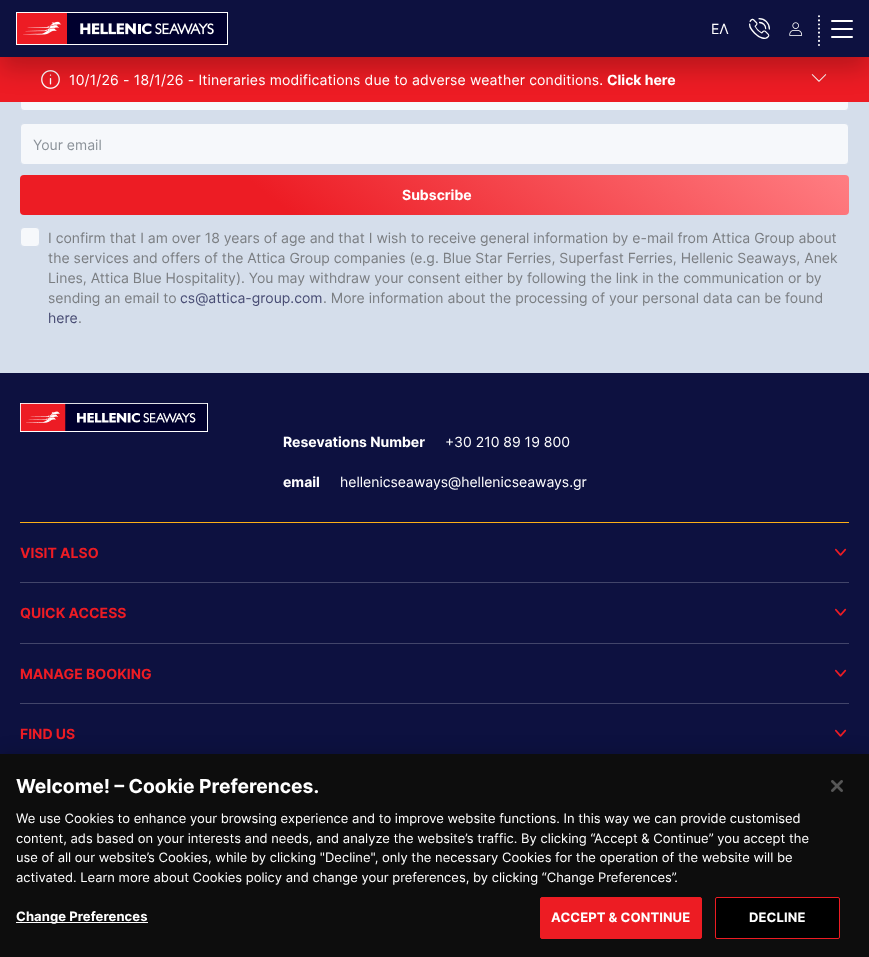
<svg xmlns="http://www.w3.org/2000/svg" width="869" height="957">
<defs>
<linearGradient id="g1" gradientUnits="userSpaceOnUse" x1="270" y1="408" x2="599" y2="-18"><stop offset="0.31" stop-color="#ed1c24"/><stop offset="1" stop-color="#ff7e83"/></linearGradient>
</defs>
<rect width="100%" height="100%" fill="#d5deeb"/>
<rect x="20.5" y="69.5" width="828" height="41" rx="3.5" fill="#f6f8fb" stroke="#d5deeb"/>
<rect y="57" width="869" height="45" fill="#ed1c24"/>
<image x="41" y="70" width="19" height="19" href="media/3.png"/>
<image x="811" y="74" width="16" height="8" href="media/4.png"/>
<rect y="12" width="869" height="57" fill="#00000038" filter="blur(12px)"/>
<rect width="869" height="57" fill="#0d1140"/>
<image x="16" y="12" width="212" height="33" href="media/1.png"/>
<text x="711" y="34" style="font-family:Inter;font-size:14px;fill:#fff">ΕΛ</text>
<text x="749" y="39" style="font-family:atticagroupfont;font-size:21px;fill:#fff">9</text>
<image x="789" y="22" width="14" height="14" href="media/2.png"/>
<path d="M819 45v-32" fill="none" stroke="#fff" stroke-width="2" stroke-linecap="round" stroke-linejoin="round" stroke-dasharray="0.1 4"/>
<rect x="831" y="20" width="22" height="2" rx="1" fill="#fff"/>
<rect x="831" y="28" width="22" height="2" rx="1" fill="#fff"/>
<rect x="831" y="36" width="22" height="2" rx="1" fill="#fff"/>
<text x="69" y="85" style="font-family:Inter;font-size:14px;letter-spacing:0.15px;fill:#fff">10/1/26 - 18/1/26 - Itineraries modifications due to adverse weather conditions.</text>
<text x="607" y="85" style="font-family:Inter;font-size:14px;font-weight:bold;fill:#fff">Click here</text>
<rect x="20.5" y="123.5" width="828" height="41" rx="3.5" fill="#f6f8fb" stroke="#d5deeb"/>
<text x="33" y="150" style="font-family:Inter;font-size:14px;fill:#8c939a">Your email</text>
<rect x="20" y="175" width="829" height="40" rx="4" fill="url(#g1)"/>
<text x="402" y="200" style="font-family:Inter;font-size:14px;font-weight:bold;fill:#fff">Subscribe</text>
<rect x="20.5" y="227.5" width="19" height="19" rx="3.5" fill="#f6f8fb" stroke="#d5deeb"/>
<text x="48" y="243" style="font-family:Inter;font-size:14px;fill:#7b7e82">I confirm that I am over 18 years of age and that I wish to receive general information by e-mail from Attica Group about</text>
<text x="48" y="263" style="font-family:Inter;font-size:14px;fill:#7b7e82">the services and offers of the Attica Group companies (e.g. Blue Star Ferries, Superfast Ferries, Hellenic Seaways, Anek</text>
<text x="48" y="283" style="font-family:Inter;font-size:14px;fill:#7b7e82">Lines, Attica Blue Hospitality). You may withdraw your consent either by following the link in the communication or by</text>
<text x="48" y="303" style="font-family:Inter;font-size:14px;fill:#7b7e82">sending an email to</text>
<text x="180" y="303" style="font-family:Inter;font-size:14px;fill:#494d74">cs@attica-group.com</text>
<text x="323" y="303" style="font-family:Inter;font-size:14px;fill:#7b7e82">. More information about the processing of your personal data can be found</text>
<text x="48" y="323" style="font-family:Inter;font-size:14px;fill:#494d74">here</text>
<text x="78" y="323" style="font-family:Inter;font-size:14px;fill:#7b7e82">.</text>
<rect y="373" width="869" height="381" fill="#0d1140"/>
<image x="20" y="403" width="188" height="29" href="media/5.png"/>
<rect x="20" y="522" width="829" height="1" fill="#fcaf17"/>
<text x="283" y="447" style="font-family:Inter;font-size:14px;font-weight:bold;fill:#fff">Resevations Number</text>
<text x="445" y="447" style="font-family:Inter;font-size:14px;fill:#fff">+30 210 89 19 800</text>
<text x="283" y="487" style="font-family:Inter;font-size:14px;font-weight:bold;fill:#fff">email</text>
<text x="340" y="487" style="font-family:Inter;font-size:14px;fill:#fff">hellenicseaways@hellenicseaways.gr</text>
<rect x="20" y="582" width="829" height="1" fill="#42456a"/>
<text x="20" y="558" style="font-family:Inter;font-size:14px;font-weight:bold;fill:#ed1c24">VISIT ALSO</text>
<image x="835" y="548" width="12" height="8" href="media/6.png"/>
<rect x="20" y="643" width="829" height="1" fill="#42456a"/>
<text x="20" y="618" style="font-family:Inter;font-size:14px;font-weight:bold;fill:#ed1c24">QUICK ACCESS</text>
<image x="835" y="608" width="12" height="8" href="media/6.png"/>
<rect x="20" y="703" width="829" height="1" fill="#42456a"/>
<text x="20" y="679" style="font-family:Inter;font-size:14px;font-weight:bold;fill:#ed1c24">MANAGE BOOKING</text>
<image x="835" y="669" width="12" height="8" href="media/6.png"/>
<text x="20" y="739" style="font-family:Inter;font-size:14px;font-weight:bold;fill:#ed1c24">FIND US</text>
<image x="835" y="729" width="12" height="8" href="media/6.png"/>
<rect y="754" width="869" height="203" fill="#00000033" filter="blur(9px)"/>
<rect y="754" width="869" height="203" fill="#0d0d0d"/>
<text x="16" y="793" style="font-family:Inter;font-size:19.25px;font-weight:bold;fill:#fff">Welcome! – Cookie Preferences.</text>
<text x="16" y="823" style="font-family:Inter;font-size:13px;fill:#fff">We use Cookies to enhance your browsing experience and to improve website functions. In this way we can provide customised</text>
<text x="16" y="843" style="font-family:Inter;font-size:13px;fill:#fff">content, ads based on your interests and needs, and analyze the website’s traffic. By clicking “Accept &amp; Continue” you accept the</text>
<text x="16" y="862" style="font-family:Inter;font-size:13px;fill:#fff">use of all our website’s Cookies, while by clicking "Decline", only the necessary Cookies for the operation of the website will be</text>
<text x="16" y="882" style="font-family:Inter;font-size:13px;fill:#fff">activated. Learn more about Cookies policy and change your preferences, by clicking “Change Preferences”.</text>
<rect x="16" y="922" width="132" height="1" fill="#fff"/>
<text x="16" y="921" style="font-family:Inter;font-size:13px;font-weight:bold;letter-spacing:0.1px;fill:#fff">Change Preferences</text>
<rect x="540.5" y="897.5" width="161" height="41" rx="1.5" fill="#ed1c23" stroke="#ed1c23"/>
<text x="551" y="922" style="font-family:Inter;font-size:13px;font-weight:bold;letter-spacing:0.1px;fill:#fff">ACCEPT &amp; CONTINUE</text>
<rect x="715.5" y="897.5" width="124" height="41" rx="1.5" fill="#000" stroke="#ed1c23"/>
<text x="749" y="922" style="font-family:Inter;font-size:13px;font-weight:bold;letter-spacing:0.1px;fill:#fff">DECLINE</text>
<image x="831" y="780" width="12" height="12" href="media/7.png"/>
</svg>
